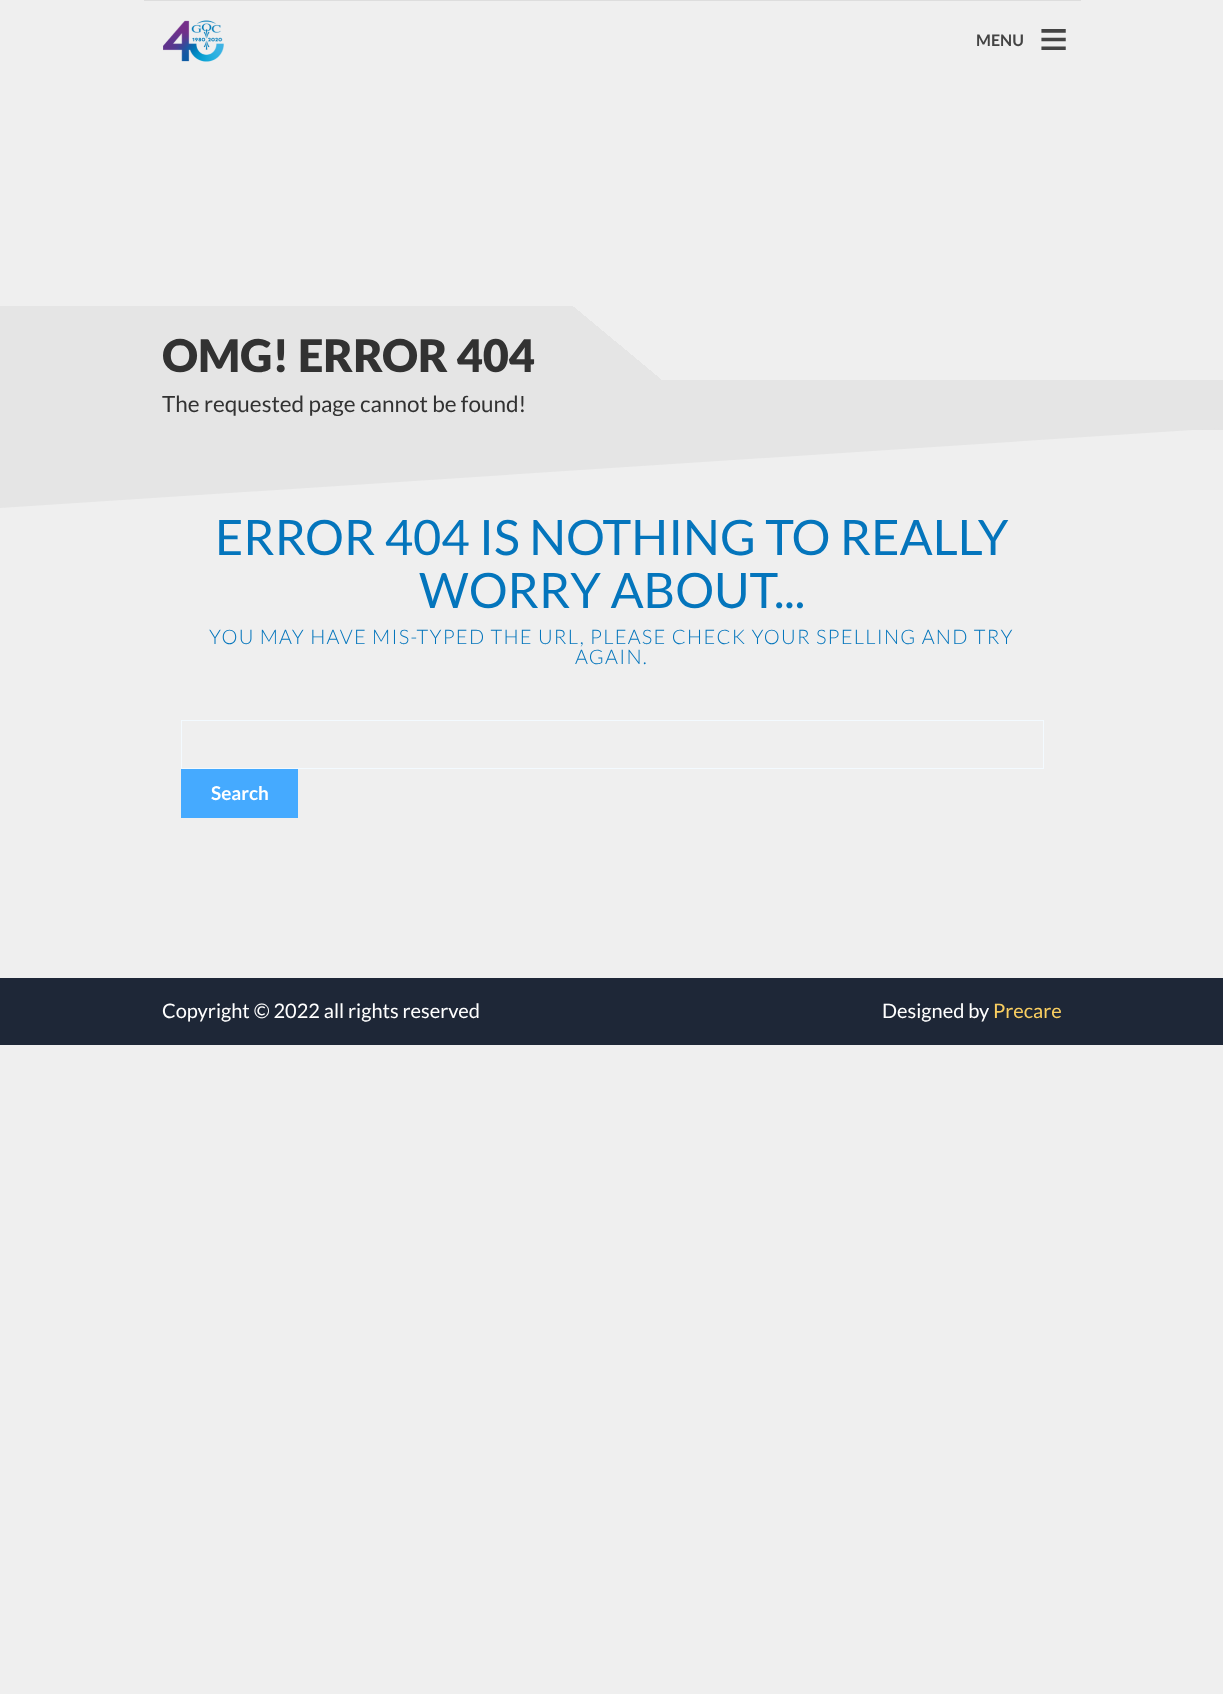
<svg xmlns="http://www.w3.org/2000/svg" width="1223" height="1694">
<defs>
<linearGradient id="g1" gradientUnits="userSpaceOnUse" x1="0" y1="343" x2="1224" y2="343"><stop offset="0" stop-color="#e5e5e5"/><stop offset="0.15" stop-color="#e5e5e5"/><stop offset="0.15" stop-color="#efefef"/><stop offset="1" stop-color="#efefef"/></linearGradient>
<linearGradient id="g2" gradientUnits="userSpaceOnUse" x1="581" y1="387" x2="654" y2="299"><stop offset="0" stop-color="#e5e5e5"/><stop offset="0.5" stop-color="#e5e5e5"/><stop offset="0.5" stop-color="#efefef"/><stop offset="1" stop-color="#efefef"/></linearGradient>
</defs>
<rect width="100%" height="100%" fill="#efefef"/>
<rect x="144" width="937" height="1" fill="#ddd"/>
<image x="163" y="20" width="61" height="42" href="media/1.png"/>
<text x="976" y="46" style="font-family:Lato;font-size:16px;font-weight:bold;fill:#444">MENU</text>
<text x="1039" y="56" style="font-family:Liberation Sans;font-size:50px;font-weight:bold;fill:#444">≡</text>
<rect y="306" width="184" height="74" fill="url(#g1)"/>
<rect x="184" y="306" width="389" height="74" fill="#e5e5e5"/>
<text x="162" y="372" style="font-family:Lato;font-size:45px;font-weight:900;fill:#323232">OMG! ERROR 404</text>
<rect x="573" y="307" width="89" height="73" fill="url(#g2)"/>
<rect y="380" width="1223" height="50" fill="#e5e5e5"/>
<text x="162" y="412" style="font-family:Lato;font-size:22.5px;fill:#323232">The requested page cannot be found!</text>
<path d="M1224 428h-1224v80z" fill="#e5e5e5"/>
<text x="215" y="555" style="font-family:Lato;font-size:48.75px;fill:#0475bc">ERROR 404 IS NOTHING TO REALLY</text>
<text x="419" y="608" style="font-family:Lato;font-size:48.75px;fill:#0475bc">WORRY ABOUT...</text>
<text x="209" y="644" style="font-family:Lato;font-size:20px;font-weight:300;letter-spacing:1.25px;fill:#0475bc">YOU MAY HAVE MIS-TYPED THE URL, PLEASE CHECK YOUR SPELLING AND TRY</text>
<text x="575" y="664" style="font-family:Lato;font-size:20px;font-weight:300;letter-spacing:1.25px;fill:#0475bc">AGAIN.</text>
<rect x="181.5" y="720.5" width="862" height="48" fill="none" stroke="#f3faff"/>
<rect x="181" y="769" width="117" height="49" fill="#45aaff"/>
<text x="211" y="800" style="font-family:Lato;font-size:19px;font-weight:bold;fill:#fff">Search</text>
<rect y="978" width="1223" height="67" fill="#1e2737"/>
<text x="162" y="1018" style="font-family:Lato;font-size:20px;fill:#fff">Copyright © 2022 all rights reserved</text>
<text x="882" y="1018" style="font-family:Lato;font-size:20px;fill:#fff">Designed by</text>
<text x="993" y="1018" style="font-family:Lato;font-size:20px;fill:#f9ce61">Precare</text>
</svg>
